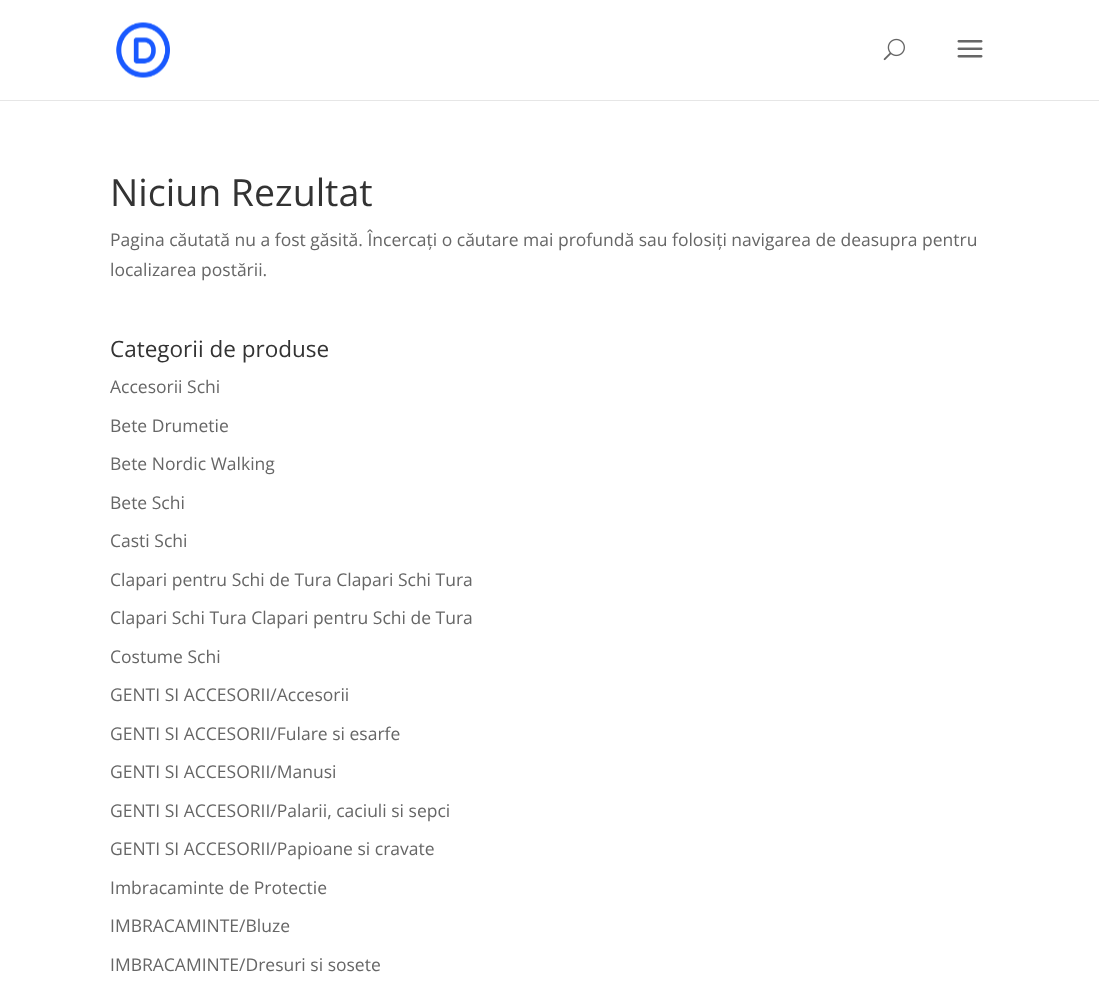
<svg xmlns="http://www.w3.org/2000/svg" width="1099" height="994">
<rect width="100%" height="100%" fill="#fff"/>
<rect y="100" width="1099" height="1" fill="#e6e6e6"/>
<image x="116" y="22" width="54" height="56" href="media/1.png"/>
<image x="883" y="38" width="22" height="23" href="media/2.png"/>
<image x="957" y="40" width="26" height="18" href="media/3.png"/>
<text x="110" y="206" style="font-family:Open Sans;font-size:37.5px;fill:#333">Niciun Rezultat</text>
<text x="110" y="246" style="font-family:Open Sans;font-size:17.5px;fill:#666">Pagina căutată nu a fost găsită. Încercați o căutare mai profundă sau folosiți navigarea de deasupra pentru</text>
<text x="110" y="276" style="font-family:Open Sans;font-size:17.5px;fill:#666">localizarea postării.</text>
<text x="110" y="357" style="font-family:Open Sans;font-size:22.5px;fill:#333">Categorii de produse</text>
<text x="110" y="393" style="font-family:Open Sans;font-size:17.5px;fill:#666">Accesorii Schi</text>
<text x="110" y="432" style="font-family:Open Sans;font-size:17.5px;fill:#666">Bete Drumetie</text>
<text x="110" y="470" style="font-family:Open Sans;font-size:17.5px;fill:#666">Bete Nordic Walking</text>
<text x="110" y="509" style="font-family:Open Sans;font-size:17.5px;fill:#666">Bete Schi</text>
<text x="110" y="547" style="font-family:Open Sans;font-size:17.5px;fill:#666">Casti Schi</text>
<text x="110" y="586" style="font-family:Open Sans;font-size:17.5px;fill:#666">Clapari pentru Schi de Tura Clapari Schi Tura</text>
<text x="110" y="624" style="font-family:Open Sans;font-size:17.5px;fill:#666">Clapari Schi Tura Clapari pentru Schi de Tura</text>
<text x="110" y="663" style="font-family:Open Sans;font-size:17.5px;fill:#666">Costume Schi</text>
<text x="110" y="701" style="font-family:Open Sans;font-size:17.5px;fill:#666">GENTI SI ACCESORII/Accesorii</text>
<text x="110" y="740" style="font-family:Open Sans;font-size:17.5px;fill:#666">GENTI SI ACCESORII/Fulare si esarfe</text>
<text x="110" y="778" style="font-family:Open Sans;font-size:17.5px;fill:#666">GENTI SI ACCESORII/Manusi</text>
<text x="110" y="817" style="font-family:Open Sans;font-size:17.5px;fill:#666">GENTI SI ACCESORII/Palarii, caciuli si sepci</text>
<text x="110" y="855" style="font-family:Open Sans;font-size:17.5px;fill:#666">GENTI SI ACCESORII/Papioane si cravate</text>
<text x="110" y="894" style="font-family:Open Sans;font-size:17.5px;fill:#666">Imbracaminte de Protectie</text>
<text x="110" y="932" style="font-family:Open Sans;font-size:17.5px;fill:#666">IMBRACAMINTE/Bluze</text>
<text x="110" y="971" style="font-family:Open Sans;font-size:17.5px;fill:#666">IMBRACAMINTE/Dresuri si sosete</text>
</svg>
